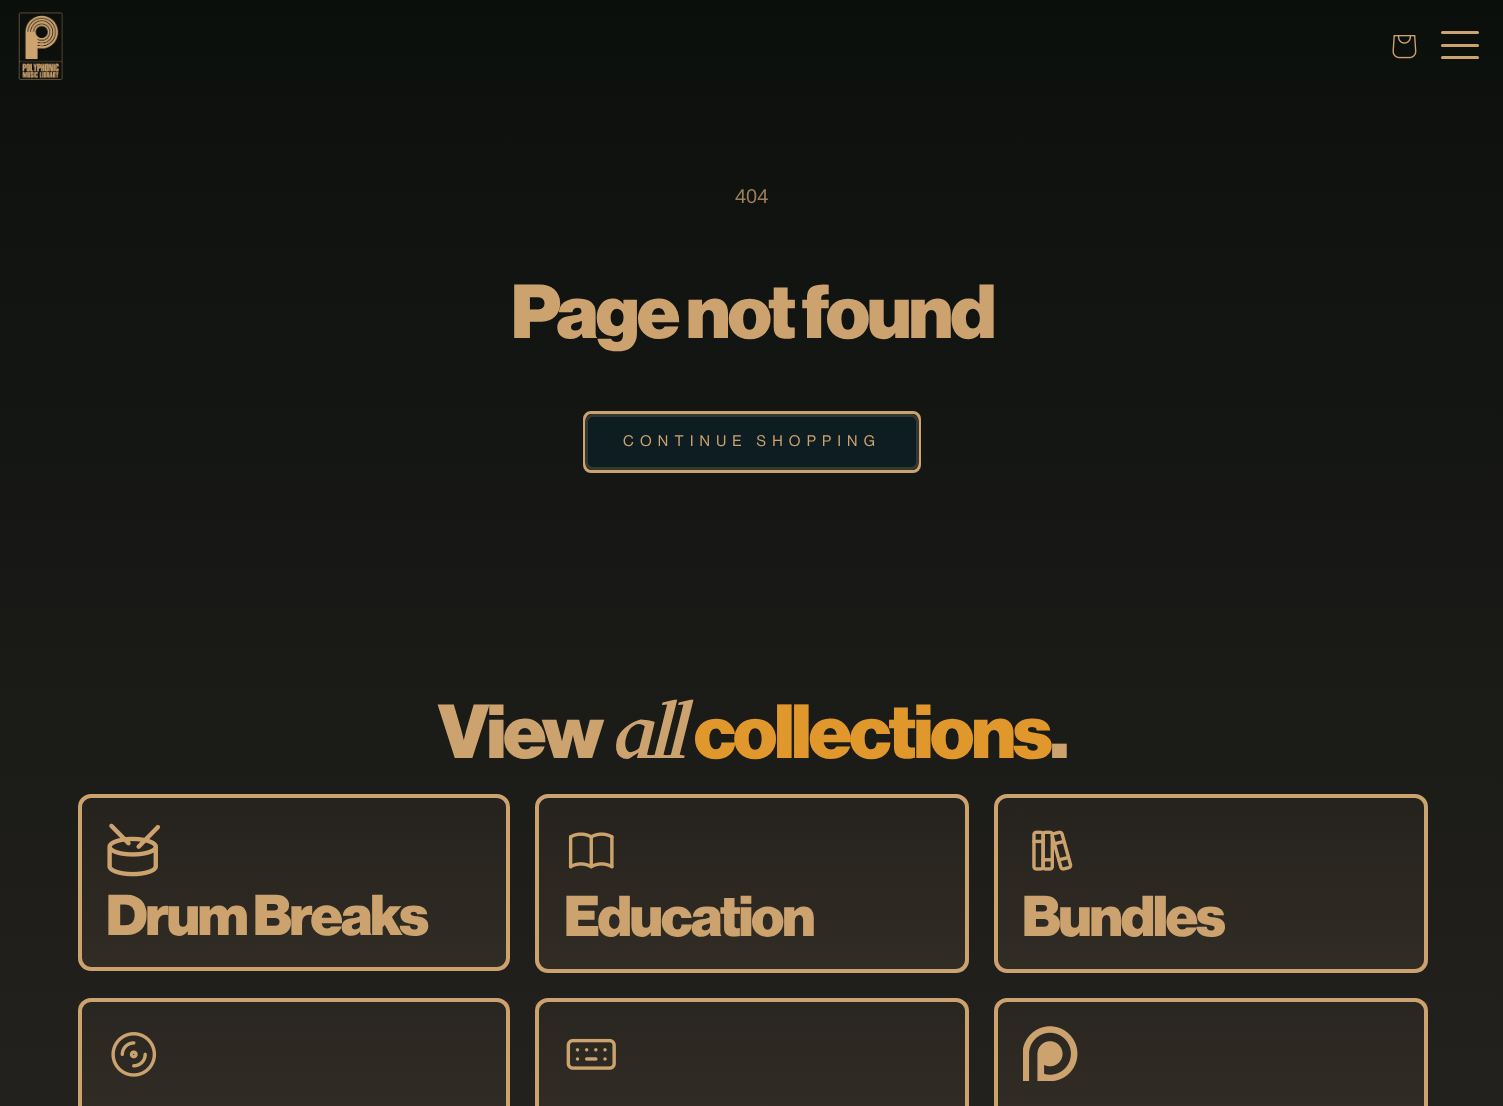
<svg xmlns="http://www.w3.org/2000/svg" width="1503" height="1106">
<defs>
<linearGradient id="g1" gradientUnits="userSpaceOnUse" x1="752" y1="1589" x2="752" y2="-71"><stop offset="0" stop-color="#2d2926"/><stop offset="1" stop-color="#0a0e0b"/></linearGradient>
<clipPath id="clip1"><rect x="78" y="794" width="432" height="177" rx="13"/></clipPath>
<linearGradient id="g2" gradientUnits="userSpaceOnUse" x1="294" y1="968" x2="294" y2="798"><stop offset="0" stop-color="#cca36f" stop-opacity="0.1"/><stop offset="1" stop-color="#cca36f" stop-opacity="0.05"/></linearGradient>
<clipPath id="clip2"><rect x="535" y="794" width="434" height="179" rx="13"/></clipPath>
<linearGradient id="g3" gradientUnits="userSpaceOnUse" x1="752" y1="969" x2="752" y2="798"><stop offset="0" stop-color="#cca36f" stop-opacity="0.1"/><stop offset="1" stop-color="#cca36f" stop-opacity="0.05"/></linearGradient>
<clipPath id="clip3"><rect x="994" y="794" width="434" height="179" rx="13"/></clipPath>
<linearGradient id="g4" gradientUnits="userSpaceOnUse" x1="1211" y1="969" x2="1211" y2="798"><stop offset="0" stop-color="#cca36f" stop-opacity="0.1"/><stop offset="1" stop-color="#cca36f" stop-opacity="0.05"/></linearGradient>
<linearGradient id="g5" gradientUnits="userSpaceOnUse" x1="294" y1="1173" x2="294" y2="1001"><stop offset="0" stop-color="#cca36f" stop-opacity="0.1"/><stop offset="1" stop-color="#cca36f" stop-opacity="0.05"/></linearGradient>
<linearGradient id="g6" gradientUnits="userSpaceOnUse" x1="752" y1="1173" x2="752" y2="1001"><stop offset="0" stop-color="#cca36f" stop-opacity="0.1"/><stop offset="1" stop-color="#cca36f" stop-opacity="0.05"/></linearGradient>
<linearGradient id="g7" gradientUnits="userSpaceOnUse" x1="1211" y1="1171" x2="1211" y2="1001"><stop offset="0" stop-color="#cca36f" stop-opacity="0.1"/><stop offset="1" stop-color="#cca36f" stop-opacity="0.05"/></linearGradient>
</defs>
<rect width="100%" height="100%" fill="#fff"/>
<rect width="1503" height="1106" fill="url(#g1)"/>
<image x="18" y="12" width="45" height="68" href="media/1.png"/>
<image x="1392" y="35" width="25" height="24" href="media/2.png"/>
<rect x="1441" y="31" width="38" height="3" rx="1.5" fill="#cca36f"/>
<rect x="1441" y="44" width="38" height="3" rx="1.5" fill="#cca36f"/>
<rect x="1441" y="56" width="38" height="3" rx="1.5" fill="#cca36f"/>
<text x="735" y="203" style="font-family:Liberation Sans;font-size:20px;fill:#9d7f57">404</text>
<text x="511" y="338" style="font-family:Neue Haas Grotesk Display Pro;font-size:75px;font-weight:900;letter-spacing:-2.6px;fill:#cca36f">Page not found</text>
<rect x="584.5" y="412.5" width="335" height="59" rx="6.5" fill="#0e1d22" stroke="#cca36f" stroke-width="3"/>
<rect x="586.5" y="415.5" width="331" height="53" rx="6.5" fill="none" stroke="#0e1d22" stroke-width="3"/>
<rect x="586.5" y="415.5" width="331" height="53" rx="6.5" fill="none" stroke="#cca36f33" stroke-width="3"/>
<text x="623" y="446" style="font-family:Neue Haas Grotesk Display Pro;font-size:15px;font-weight:500;letter-spacing:6.25px;fill:#cca36f">CONTINUE SHOPPING</text>
<text x="438" y="758" style="font-family:Neue Haas Grotesk Display Pro;font-size:75px;font-weight:900;letter-spacing:-2.6px;fill:#cca36f">View</text>
<text x="610" y="758" style="font-family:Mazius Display;font-size:75px;font-weight:bold;font-style:italic;letter-spacing:-2.6px;fill:#cca36f">all</text>
<text x="694" y="758" style="font-family:Neue Haas Grotesk Display Pro;font-size:75px;font-weight:900;letter-spacing:-2.6px;fill:#e0972c">collections</text>
<text x="1050" y="758" style="font-family:Neue Haas Grotesk Display Pro;font-size:75px;font-weight:900;letter-spacing:-2.6px;fill:#cca36f">.</text>
<g clip-path="url(#clip1)">
<rect x="78" y="798" width="432" height="170" fill="url(#g2)"/>
</g>
<rect x="80" y="796" width="428" height="173" rx="11" fill="none" stroke="#cca36f" stroke-width="4"/>
<image x="107" y="823" width="53" height="54" href="media/3.png"/>
<text x="106" y="935" style="font-family:Neue Haas Grotesk Display Pro;font-size:56.25px;font-weight:900;letter-spacing:-2px;fill:#cca36f">Drum Breaks</text>
<g clip-path="url(#clip2)">
<rect x="535" y="798" width="434" height="171" fill="url(#g3)"/>
</g>
<rect x="537" y="796" width="430" height="175" rx="11" fill="none" stroke="#cca36f" stroke-width="4"/>
<image x="568" y="832" width="46" height="37" href="media/4.png"/>
<text x="564" y="936" style="font-family:Neue Haas Grotesk Display Pro;font-size:56.25px;font-weight:900;letter-spacing:-2px;fill:#cca36f">Education</text>
<g clip-path="url(#clip3)">
<rect x="994" y="798" width="434" height="171" fill="url(#g4)"/>
</g>
<rect x="996" y="796" width="430" height="175" rx="11" fill="none" stroke="#cca36f" stroke-width="4"/>
<image x="1032" y="830" width="41" height="41" href="media/5.png"/>
<text x="1022" y="936" style="font-family:Neue Haas Grotesk Display Pro;font-size:56.25px;font-weight:900;letter-spacing:-2px;fill:#cca36f">Bundles</text>
<rect x="78" y="1001" width="432" height="105" fill="url(#g5)"/>
<rect x="80" y="1000" width="428" height="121" rx="11" fill="none" stroke="#cca36f" stroke-width="4"/>
<image x="111" y="1032" width="46" height="45" href="media/6.png"/>
<rect x="535" y="1001" width="434" height="105" fill="url(#g6)"/>
<rect x="537" y="1000" width="430" height="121" rx="11" fill="none" stroke="#cca36f" stroke-width="4"/>
<image x="566" y="1038" width="50" height="32" href="media/7.png"/>
<rect x="994" y="1001" width="434" height="105" fill="url(#g7)"/>
<rect x="996" y="1000" width="430" height="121" rx="11" fill="none" stroke="#cca36f" stroke-width="4"/>
<image x="1023" y="1026" width="55" height="55" href="media/8.png"/>
</svg>
